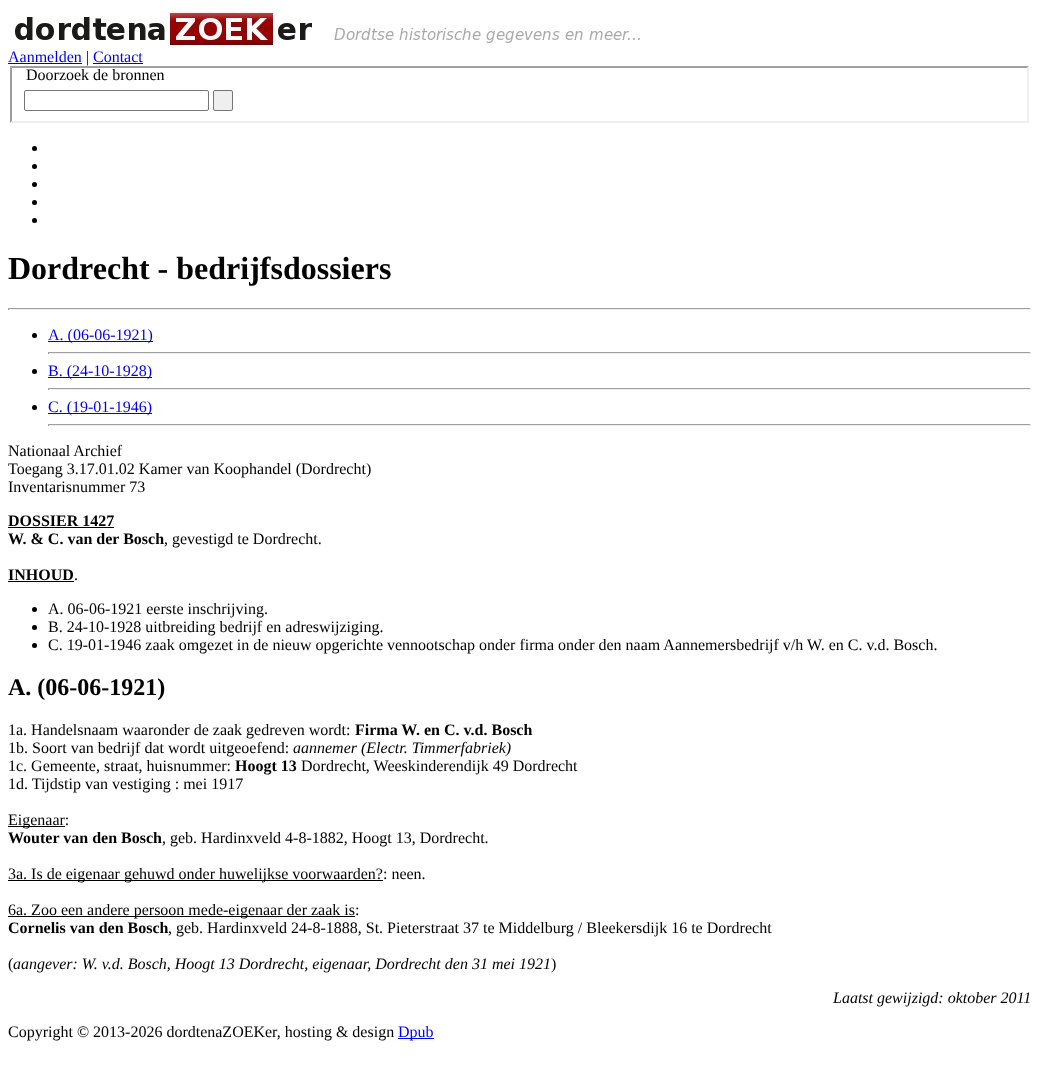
<svg xmlns="http://www.w3.org/2000/svg" width="1039" height="1091">
<rect width="100%" height="100%" fill="#fff"/>
<image x="8" y="8" width="632" height="40" href="media/1.png"/>
<text x="8" y="62" style="font-family:Liberation Serif;font-size:16px;fill:#00e">Aanmelden</text>
<rect x="8" y="63" width="74" height="1" fill="#00e"/>
<text x="86" y="62" style="font-family:Liberation Serif;font-size:16px;fill:#000">|</text>
<text x="93" y="62" style="font-family:Liberation Serif;font-size:16px;fill:#00e">Contact</text>
<rect x="93" y="63" width="50" height="1" fill="#00e"/>
<path d="M10 66h1019l-2 2h-1015z" fill="#9f9f9f"/>
<path d="M1029 66v57l-2-2v-53z" fill="#efefef"/>
<path d="M1029 123h-1019l2-2h1015z" fill="#efefef"/>
<path d="M10 123v-57l2 2v53z" fill="#9f9f9f"/>
<text x="26" y="80" style="font-family:Liberation Serif;font-size:16px;fill:#000">Doorzoek de bronnen</text>
<rect x="24.5" y="90.5" width="184" height="20" rx="1.5" fill="none" stroke="#767676"/>
<rect x="213.5" y="90.5" width="19" height="20" rx="1.5" fill="#efefef" stroke="#767676"/>
<circle cx="34.5" cy="148.5" r="2.5" fill="#000"/>
<circle cx="34.5" cy="166.5" r="2.5" fill="#000"/>
<circle cx="34.5" cy="184.5" r="2.5" fill="#000"/>
<circle cx="34.5" cy="202.5" r="2.5" fill="#000"/>
<circle cx="34.5" cy="220.5" r="2.5" fill="#000"/>
<text x="8" y="279" style="font-family:Liberation Serif;font-size:32px;font-weight:bold;fill:#000">Dordrecht - bedrijfsdossiers</text>
<rect x="8" y="308" width="1023" height="1" fill="#9f9f9f"/>
<rect x="1030" y="308" width="1" height="2" fill="#eee"/>
<rect x="8" y="309" width="1023" height="1" fill="#eee"/>
<rect x="8" y="308" width="1" height="2" fill="#9f9f9f"/>
<circle cx="34.5" cy="335.5" r="2.5" fill="#000"/>
<rect x="48" y="341" width="105" height="1" fill="#00e"/>
<text x="48" y="340" style="font-family:Liberation Serif;font-size:16px;fill:#00e">A. (06-06-1921)</text>
<rect x="48" y="352" width="983" height="1" fill="#9f9f9f"/>
<rect x="1030" y="352" width="1" height="2" fill="#eee"/>
<rect x="48" y="353" width="983" height="1" fill="#eee"/>
<rect x="48" y="352" width="1" height="2" fill="#9f9f9f"/>
<circle cx="34.5" cy="371.5" r="2.5" fill="#000"/>
<rect x="48" y="377" width="104" height="1" fill="#00e"/>
<text x="48" y="376" style="font-family:Liberation Serif;font-size:16px;fill:#00e">B. (24-10-1928)</text>
<rect x="48" y="388" width="983" height="1" fill="#9f9f9f"/>
<rect x="1030" y="388" width="1" height="2" fill="#eee"/>
<rect x="48" y="389" width="983" height="1" fill="#eee"/>
<rect x="48" y="388" width="1" height="2" fill="#9f9f9f"/>
<circle cx="34.5" cy="407.5" r="2.5" fill="#000"/>
<rect x="48" y="413" width="104" height="1" fill="#00e"/>
<text x="48" y="412" style="font-family:Liberation Serif;font-size:16px;fill:#00e">C. (19-01-1946)</text>
<rect x="48" y="424" width="983" height="1" fill="#9f9f9f"/>
<rect x="1030" y="424" width="1" height="2" fill="#eee"/>
<rect x="48" y="425" width="983" height="1" fill="#eee"/>
<rect x="48" y="424" width="1" height="2" fill="#9f9f9f"/>
<text x="8" y="456" style="font-family:Liberation Serif;font-size:16px;fill:#000">Nationaal Archief</text>
<text x="8" y="474" style="font-family:Liberation Serif;font-size:16px;fill:#000">Toegang 3.17.01.02 Kamer van Koophandel (Dordrecht)</text>
<text x="8" y="492" style="font-family:Liberation Serif;font-size:16px;fill:#000">Inventarisnummer 73</text>
<text x="8" y="526" style="font-family:Liberation Serif;font-size:16px;font-weight:bold;fill:#000">DOSSIER 1427</text>
<rect x="8" y="527" width="106" height="1" fill="#000"/>
<text x="8" y="544" style="font-family:Liberation Serif;font-size:16px;font-weight:bold;fill:#000">W. &amp; C. van der Bosch</text>
<text x="164" y="544" style="font-family:Liberation Serif;font-size:16px;fill:#000">, gevestigd te Dordrecht.</text>
<text x="8" y="580" style="font-family:Liberation Serif;font-size:16px;font-weight:bold;fill:#000">INHOUD</text>
<rect x="8" y="581" width="66" height="1" fill="#000"/>
<text x="74" y="580" style="font-family:Liberation Serif;font-size:16px;fill:#000">.</text>
<circle cx="34.5" cy="609.5" r="2.5" fill="#000"/>
<text x="48" y="614" style="font-family:Liberation Serif;font-size:16px;fill:#000">A. 06-06-1921 eerste inschrijving.</text>
<circle cx="34.5" cy="627.5" r="2.5" fill="#000"/>
<text x="48" y="632" style="font-family:Liberation Serif;font-size:16px;fill:#000">B. 24-10-1928 uitbreiding bedrijf en adreswijziging.</text>
<circle cx="34.5" cy="645.5" r="2.5" fill="#000"/>
<text x="48" y="650" style="font-family:Liberation Serif;font-size:16px;fill:#000">C. 19-01-1946 zaak omgezet in de nieuw opgerichte vennootschap onder firma onder den naam Aannemersbedrijf v/h W. en C. v.d. Bosch.</text>
<text x="8" y="695" style="font-family:Liberation Serif;font-size:24px;font-weight:bold;fill:#000">A. (06-06-1921)</text>
<text x="8" y="735" style="font-family:Liberation Serif;font-size:16px;fill:#000">1a. Handelsnaam waaronder de zaak gedreven wordt:</text>
<text x="355" y="735" style="font-family:Liberation Serif;font-size:16px;font-weight:bold;fill:#000">Firma W. en C. v.d. Bosch</text>
<text x="8" y="753" style="font-family:Liberation Serif;font-size:16px;fill:#000">1b. Soort van bedrijf dat wordt uitgeoefend:</text>
<text x="293" y="753" style="font-family:Liberation Serif;font-size:16px;font-style:italic;fill:#000">aannemer (Electr. Timmerfabriek)</text>
<text x="8" y="771" style="font-family:Liberation Serif;font-size:16px;fill:#000">1c. Gemeente, straat, huisnummer:</text>
<text x="235" y="771" style="font-family:Liberation Serif;font-size:16px;font-weight:bold;fill:#000">Hoogt 13</text>
<text x="301" y="771" style="font-family:Liberation Serif;font-size:16px;fill:#000">Dordrecht, Weeskinderendijk 49 Dordrecht</text>
<text x="8" y="789" style="font-family:Liberation Serif;font-size:16px;fill:#000">1d. Tijdstip van vestiging : mei 1917</text>
<rect x="8" y="826" width="57" height="1" fill="#000"/>
<text x="8" y="825" style="font-family:Liberation Serif;font-size:16px;fill:#000">Eigenaar:</text>
<text x="8" y="843" style="font-family:Liberation Serif;font-size:16px;font-weight:bold;fill:#000">Wouter van den Bosch</text>
<text x="162" y="843" style="font-family:Liberation Serif;font-size:16px;fill:#000">, geb. Hardinxveld 4-8-1882, Hoogt 13, Dordrecht.</text>
<rect x="8" y="880" width="375" height="1" fill="#000"/>
<text x="8" y="879" style="font-family:Liberation Serif;font-size:16px;fill:#000">3a. Is de eigenaar gehuwd onder huwelijkse voorwaarden?: neen.</text>
<rect x="8" y="916" width="347" height="1" fill="#000"/>
<text x="8" y="915" style="font-family:Liberation Serif;font-size:16px;fill:#000">6a. Zoo een andere persoon mede-eigenaar der zaak is:</text>
<text x="8" y="933" style="font-family:Liberation Serif;font-size:16px;font-weight:bold;fill:#000">Cornelis van den Bosch</text>
<text x="168" y="933" style="font-family:Liberation Serif;font-size:16px;fill:#000">, geb. Hardinxveld 24-8-1888, St. Pieterstraat 37 te Middelburg / Bleekersdijk 16 te Dordrecht</text>
<text x="8" y="969" style="font-family:Liberation Serif;font-size:16px;fill:#000">(</text>
<text x="13" y="969" style="font-family:Liberation Serif;font-size:16px;font-style:italic;fill:#000">aangever: W. v.d. Bosch, Hoogt 13 Dordrecht, eigenaar, Dordrecht den 31 mei 1921</text>
<text x="551" y="969" style="font-family:Liberation Serif;font-size:16px;fill:#000">)</text>
<text x="833" y="1003" style="font-family:Liberation Serif;font-size:16px;font-style:italic;fill:#000">Laatst gewijzigd: oktober 2011</text>
<text x="8" y="1037" style="font-family:Liberation Serif;font-size:16px;fill:#000">Copyright © 2013-2026 dordtenaZOEKer, hosting &amp; design</text>
<rect x="398" y="1038" width="36" height="1" fill="#00e"/>
<text x="398" y="1037" style="font-family:Liberation Serif;font-size:16px;fill:#00e">Dpub</text>
</svg>
